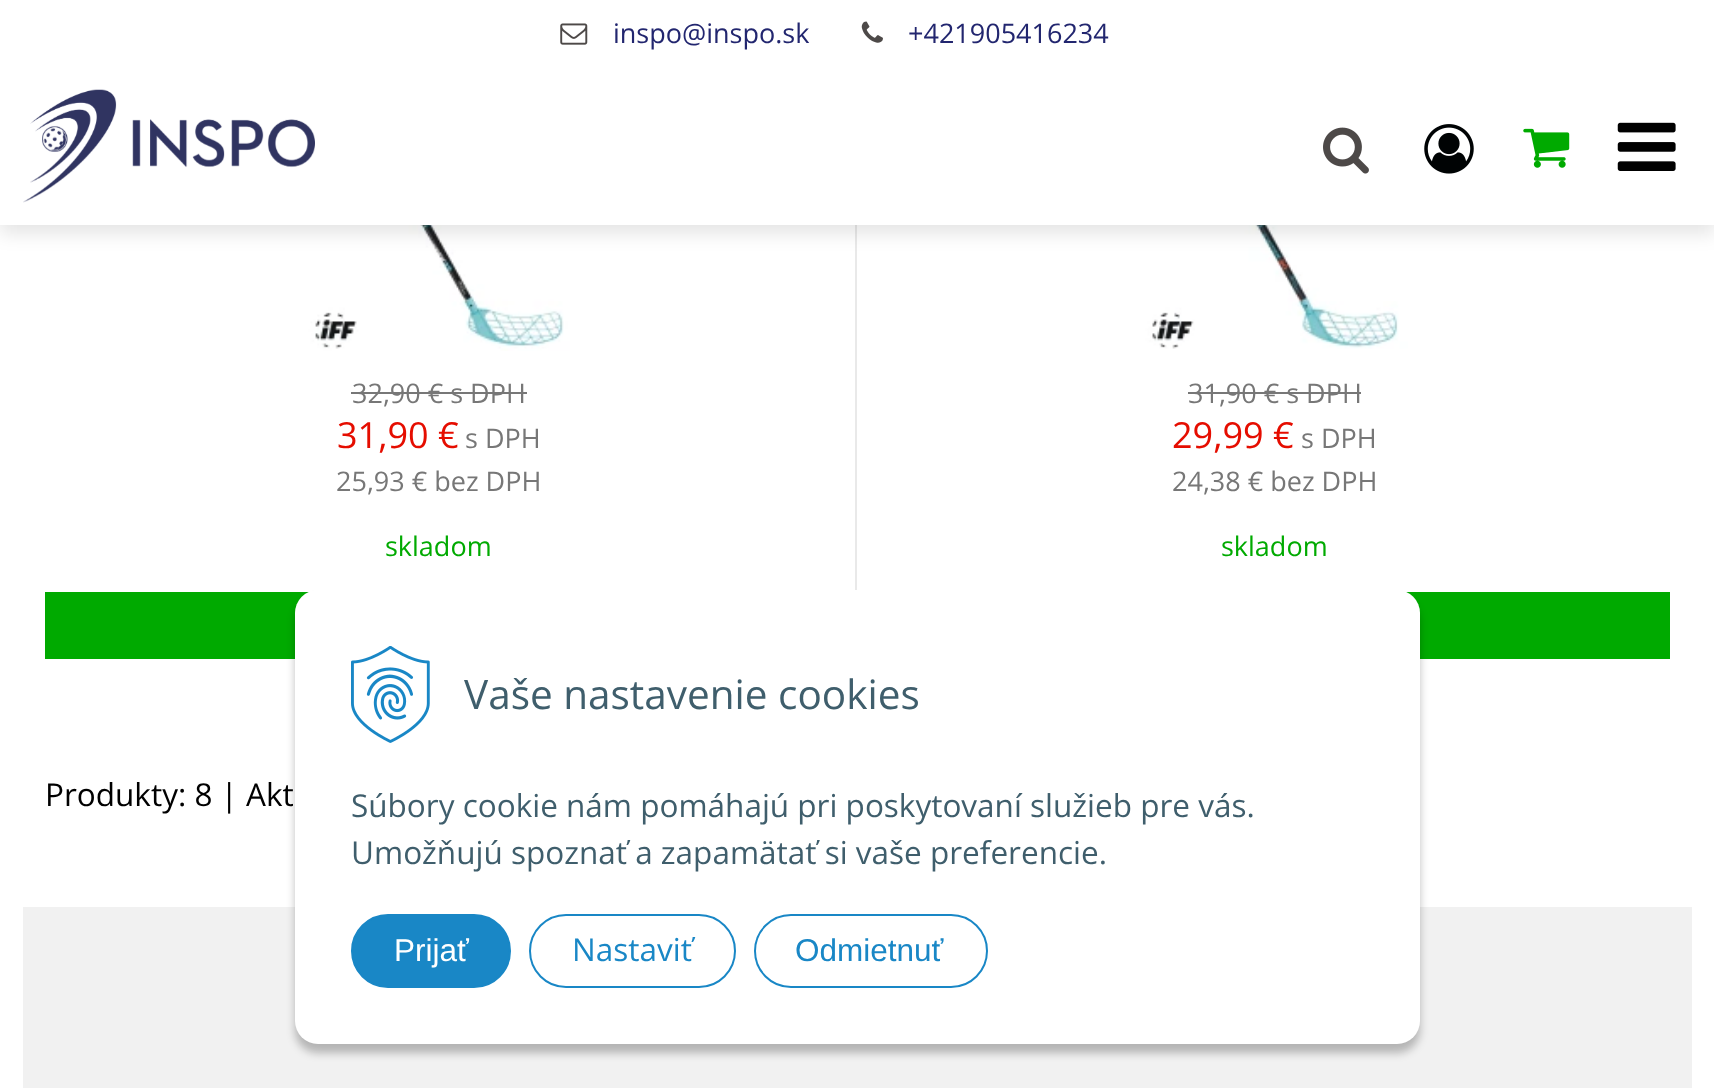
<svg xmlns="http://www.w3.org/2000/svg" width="1714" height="1088">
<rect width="100%" height="100%" fill="#fff"/>
<rect x="855" y="225" width="2" height="365" fill="#e9e9e9"/>
<image x="304" y="225" width="266" height="126" href="media/8.png"/>
<image x="1145" y="225" width="263" height="124" href="media/9.png"/>
<rect y="9" width="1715" height="225" fill="#0000001a" filter="blur(9px)"/>
<rect width="1714" height="225" fill="#fff"/>
<image x="560" y="23" width="28" height="22" href="media/1.png"/>
<text x="613" y="43" style="font-family:Open Sans;font-size:27px;fill:#22266f">inspo@inspo.sk</text>
<image x="861" y="21" width="22" height="22" href="media/2.png"/>
<text x="908" y="43" style="font-family:Open Sans;font-size:27px;fill:#22266f">+421905416234</text>
<image x="23" y="89" width="292" height="114" href="media/3.png"/>
<image x="1323" y="127" width="46" height="47" href="media/4.png"/>
<image x="1424" y="124" width="50" height="50" href="media/5.png"/>
<image x="1523" y="128" width="47" height="40" href="media/6.png"/>
<image x="1617" y="122" width="59" height="49" href="media/7.png"/>
<text x="352" y="403" style="font-family:Open Sans;font-size:27px;fill:#777">32,90 € s DPH</text>
<rect x="351" y="392" width="176" height="2" fill="#777"/>
<text x="337" y="448" style="font-family:Open Sans;font-size:36px;fill:#e50d00">31,90 €</text>
<text x="465" y="448" style="font-family:Open Sans;font-size:27px;fill:#777">s DPH</text>
<text x="336" y="491" style="font-family:Open Sans;font-size:27px;fill:#777">25,93 € bez DPH</text>
<text x="385" y="556" style="font-family:Open Sans;font-size:27px;fill:#0a0">skladom</text>
<rect x="45" y="592" width="264" height="67" fill="#0a0"/>
<text x="1188" y="403" style="font-family:Open Sans;font-size:27px;fill:#777">31,90 € s DPH</text>
<rect x="1188" y="392" width="173" height="2" fill="#777"/>
<text x="1172" y="448" style="font-family:Open Sans;font-size:36px;fill:#e50d00">29,99 €</text>
<text x="1301" y="448" style="font-family:Open Sans;font-size:27px;fill:#777">s DPH</text>
<text x="1172" y="491" style="font-family:Open Sans;font-size:27px;fill:#777">24,38 € bez DPH</text>
<text x="1221" y="556" style="font-family:Open Sans;font-size:27px;fill:#0a0">skladom</text>
<rect x="1406" y="592" width="264" height="67" fill="#0a0"/>
<text x="45" y="806" style="font-family:Open Sans;font-size:31.5px;fill:#000">Produkty: 8 | Akt</text>
<rect x="23" y="907" width="1669" height="181" fill="#f1f1f1"/>
<rect x="295" y="599" width="1125" height="454" rx="23" fill="#00000040" filter="blur(4.5px)"/>
<rect x="295" y="590" width="1125" height="454" rx="23" fill="#fff"/>
<image x="351" y="646" width="79" height="97" href="media/10.png"/>
<text x="464" y="709" style="font-family:Open Sans;font-size:40.5px;fill:#3f5e6c">Vaše nastavenie cookies</text>
<text x="351" y="817" style="font-family:Open Sans;font-size:31.5px;fill:#3f5e6c">Súbory cookie nám pomáhajú pri poskytovaní služieb pre vás.</text>
<text x="351" y="864" style="font-family:Open Sans;font-size:31.5px;fill:#3f5e6c">Umožňujú spoznať a zapamätať si vaše preferencie.</text>
<rect x="352" y="915" width="158" height="72" rx="36" fill="#1987c6" stroke="#1987c6" stroke-width="2"/>
<text x="394" y="961" style="font-family:Liberation Sans;font-size:31.5px;fill:#fff">Prijať</text>
<rect x="530" y="915" width="205" height="72" rx="36" fill="none" stroke="#1987c6" stroke-width="2"/>
<text x="572" y="961" style="font-family:Open Sans;font-size:31.5px;fill:#1987c6">Nastaviť</text>
<rect x="755" y="915" width="232" height="72" rx="36" fill="none" stroke="#1987c6" stroke-width="2"/>
<text x="795" y="961" style="font-family:Liberation Sans;font-size:31.5px;fill:#1987c6">Odmietnuť</text>
</svg>
